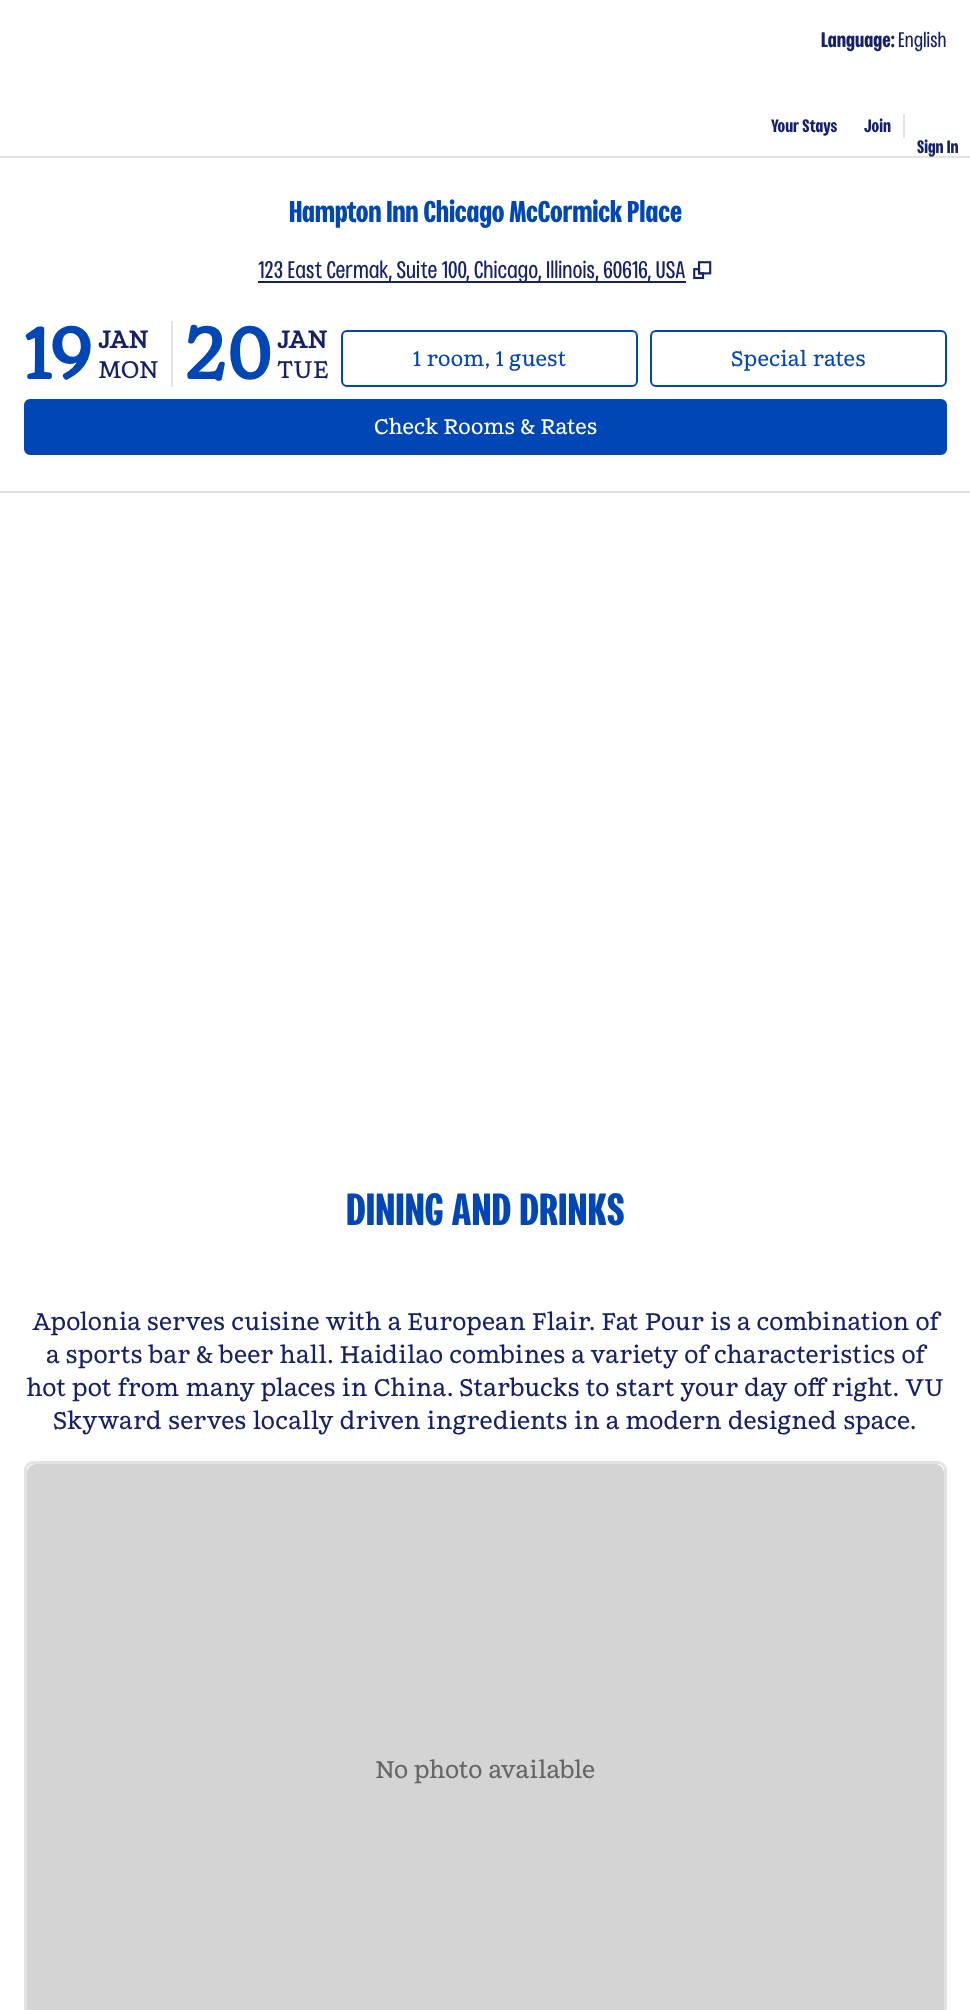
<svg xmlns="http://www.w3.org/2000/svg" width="970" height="2010">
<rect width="100%" height="100%" fill="#fff"/>
<rect y="156" width="970" height="2" fill="#e3e3e3"/>
<text x="821" y="47" style="font-family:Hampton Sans;font-size:21px;font-weight:bold;fill:#16216a">Language:</text>
<text x="898" y="47" style="font-family:Hampton Sans;font-size:21px;fill:#16216a">English</text>
<text x="771" y="132" style="font-family:Hampton Sans;font-size:18px;font-weight:bold;fill:#16216a">Your Stays</text>
<rect x="903" y="114" width="2" height="24" fill="#e3e3e3"/>
<text x="864" y="132" style="font-family:Hampton Sans;font-size:18px;font-weight:bold;fill:#16216a">Join</text>
<text x="917" y="153" style="font-family:Hampton Sans;font-size:18px;font-weight:bold;fill:#16216a">Sign In</text>
<rect y="491" width="970" height="2" fill="#dcdcdc"/>
<text x="289" y="222" style="font-family:Hampton Sans;font-size:30px;font-weight:bold;letter-spacing:-0.25px;fill:#0047b5">Hampton Inn Chicago McCormick Place</text>
<rect x="258" y="281" width="428" height="2" fill="#16216a"/>
<text x="258" y="278" style="font-family:Hampton Sans;font-size:24px;fill:#16216a">123 East Cermak, Suite 100, Chicago, Illinois, 60616, USA</text>
<image x="693" y="261" width="19" height="19" href="media/1.png"/>
<text x="24" y="379" style="font-family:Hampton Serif;font-size:72px;font-weight:bold;fill:#0047b5">19</text>
<text x="98" y="348" style="font-family:Hampton Serif;font-size:24px;font-weight:bold;fill:#16216a">JAN</text>
<text x="98" y="378" style="font-family:Hampton Serif;font-size:24px;fill:#16216a">MON</text>
<rect x="171" y="321" width="2" height="66" fill="#e3e3e3"/>
<text x="185" y="379" style="font-family:Hampton Serif;font-size:72px;font-weight:bold;fill:#0047b5">20</text>
<text x="277" y="348" style="font-family:Hampton Serif;font-size:24px;font-weight:bold;fill:#16216a">JAN</text>
<text x="277" y="378" style="font-family:Hampton Serif;font-size:24px;fill:#16216a">TUE</text>
<rect x="342" y="331" width="295" height="55" rx="5" fill="none" stroke="#0047b5" stroke-width="2"/>
<text x="413" y="366" style="font-family:Hampton Serif;font-size:21px;fill:#0047b5">1 room, 1 guest</text>
<rect x="651" y="331" width="295" height="55" rx="5" fill="none" stroke="#0047b5" stroke-width="2"/>
<text x="731" y="366" style="font-family:Hampton Serif;font-size:21px;fill:#0047b5">Special rates</text>
<rect x="25" y="400" width="921" height="54" rx="5" fill="#0047b5" stroke="#0047b5" stroke-width="2"/>
<text x="374" y="434" style="font-family:Hampton Serif;font-size:21px;fill:#fff">Check Rooms &amp; Rates</text>
<text x="346" y="1225" style="font-family:Hampton Sans;font-size:45px;font-weight:bold;fill:#0047b5">DINING AND DRINKS</text>
<text x="32" y="1330" style="font-family:Hampton Serif;font-size:24px;fill:#16216a">Apolonia serves cuisine with a European Flair. Fat Pour is a combination of</text>
<text x="46" y="1363" style="font-family:Hampton Serif;font-size:24px;fill:#16216a">a sports bar &amp; beer hall. Haidilao combines a variety of characteristics of</text>
<text x="26" y="1396" style="font-family:Hampton Serif;font-size:24px;fill:#16216a">hot pot from many places in China. Starbucks to start your day off right. VU</text>
<text x="53" y="1429" style="font-family:Hampton Serif;font-size:24px;fill:#16216a">Skyward serves locally driven ingredients in a modern designed space.</text>
<rect x="25.5" y="1462.5" width="920" height="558" rx="7.5" fill="none" stroke="#e3e3e3" stroke-width="3"/>
<path d="M36 1464h899c5 0 9 4 9 9v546h-917v-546c0-5 4-9 9-9z" fill="#d4d4d4"/>
<text x="375" y="1778" style="font-family:Hampton Serif;font-size:24px;fill:#666">No photo available</text>
</svg>
